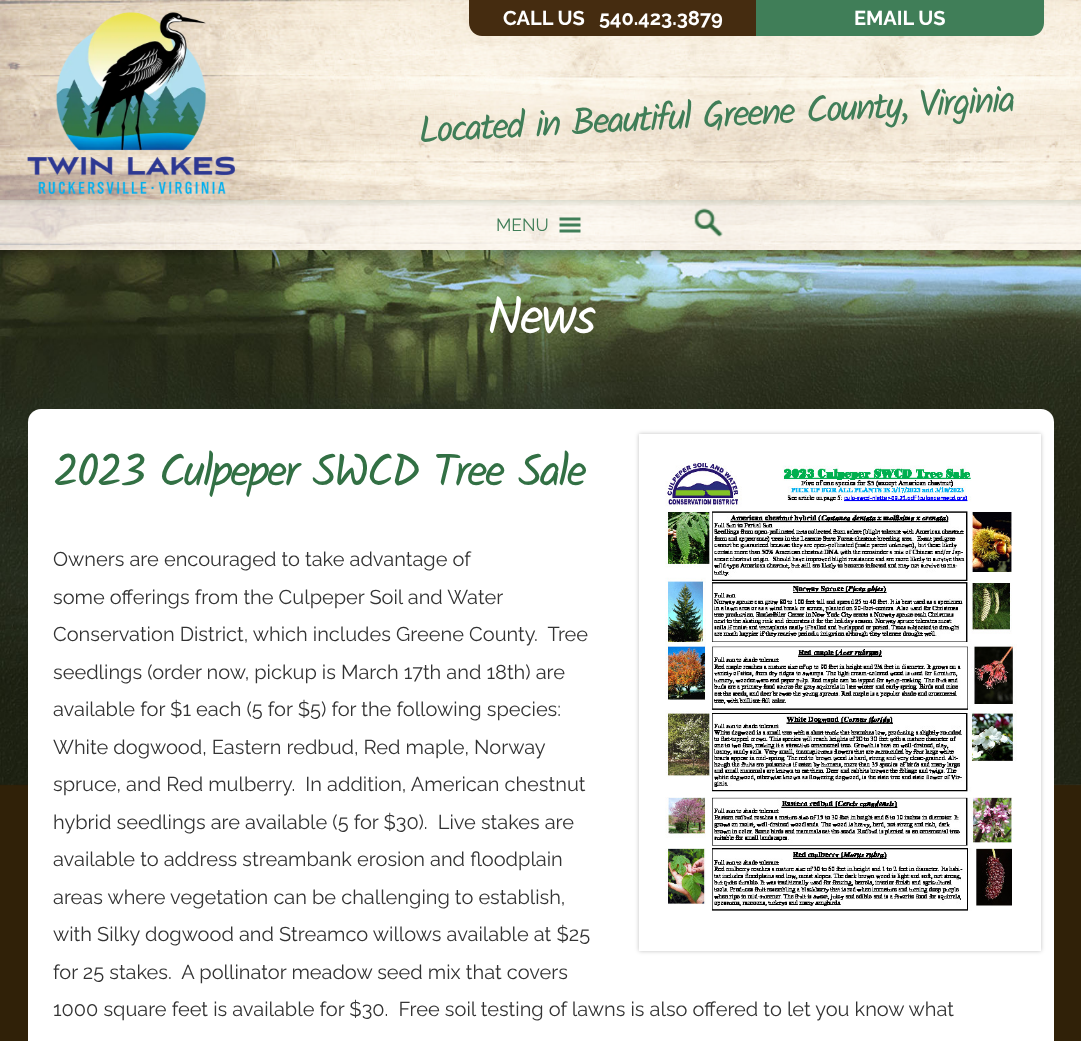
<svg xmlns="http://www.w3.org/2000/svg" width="1081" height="1041">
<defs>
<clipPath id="clip1"><path d="M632 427h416v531h-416zm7 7h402v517h-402z" clip-rule="evenodd"/></clipPath>
</defs>
<rect width="100%" height="100%" fill="#302108"/>
<image x="0" y="250" width="1081" height="536" href="media/1.png"/>
<image x="0" y="0" width="1081" height="250" href="media/2.png"/>
<image x="27" y="12" width="208" height="182" href="media/3.png"/>
<path d="M469 0h287v36h-274c-7 0-13-6-13-13z" fill="#452c10"/>
<text x="503" y="25" style="font-family:Raleway;font-size:20px;font-weight:bold;fill:#fff">CALL US</text>
<text x="599" y="25" style="font-family:Raleway;font-size:20px;font-weight:bold;fill:#fff">540.423.3879</text>
<path d="M756 0h288v23c0 7-6 13-13 13h-275z" fill="#407e58"/>
<text x="854" y="25" style="font-family:Raleway;font-size:20px;font-weight:bold;fill:#fff">EMAIL US</text>
<text x="419" y="143" transform="rotate(-3 419 143)" style="font-family:Kalam;font-size:37.5px;letter-spacing:-2.5px;fill:#407e58">Located in Beautiful Greene County, Virginia</text>
<rect y="200" width="1081" height="50" fill="#ffffff80"/>
<text x="496" y="231" style="font-family:Raleway;font-size:17.5px;fill:#407e58">MENU</text>
<image x="559" y="217" width="22" height="16" href="media/4.png"/>
<image x="694" y="208" width="29" height="29" href="media/5.png"/>
<image x="0" y="200" width="1081" height="6" href="media/6.png"/>
<image x="0" y="250" width="1081" height="15" href="media/7.png"/>
<text x="487" y="334" style="font-family:Kalam;font-size:52.5px;letter-spacing:-2.5px;fill:#fff">News</text>
<rect x="28" y="409" width="1026" height="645" rx="13" fill="#fff"/>
<text x="53" y="486" style="font-family:Kalam;font-size:45px;letter-spacing:-2.5px;fill:#327044">2023 Culpeper SWCD Tree Sale</text>
<g clip-path="url(#clip1)">
<rect x="639" y="434" width="402" height="517" fill="#00000040" filter="blur(2px)"/>
</g>
<image x="665" y="460" width="352" height="451" href="media/8.png"/>
<text x="53" y="566" style="font-family:Raleway;font-size:20px;fill:#333">Owners are encouraged to take advantage of</text>
<text x="53" y="604" style="font-family:Raleway;font-size:20px;fill:#333">some offerings from the Culpeper Soil and Water</text>
<text x="53" y="641" style="font-family:Raleway;font-size:20px;fill:#333" xml:space="preserve">Conservation District, which includes Greene County.  Tree</text>
<text x="53" y="679" style="font-family:Raleway;font-size:20px;fill:#333">seedlings (order now, pickup is March 17th and 18th) are</text>
<text x="53" y="716" style="font-family:Raleway;font-size:20px;fill:#333">available for $1 each (5 for $5) for the following species:</text>
<text x="53" y="754" style="font-family:Raleway;font-size:20px;fill:#333">White dogwood, Eastern redbud, Red maple, Norway</text>
<text x="53" y="791" style="font-family:Raleway;font-size:20px;fill:#333" xml:space="preserve">spruce, and Red mulberry.  In addition, American chestnut</text>
<text x="53" y="829" style="font-family:Raleway;font-size:20px;fill:#333" xml:space="preserve">hybrid seedlings are available (5 for $30).  Live stakes are</text>
<text x="53" y="866" style="font-family:Raleway;font-size:20px;fill:#333">available to address streambank erosion and floodplain</text>
<text x="53" y="904" style="font-family:Raleway;font-size:20px;fill:#333">areas where vegetation can be challenging to establish,</text>
<text x="53" y="941" style="font-family:Raleway;font-size:20px;fill:#333">with Silky dogwood and Streamco willows available at $25</text>
<text x="53" y="979" style="font-family:Raleway;font-size:20px;fill:#333" xml:space="preserve">for 25 stakes.  A pollinator meadow seed mix that covers</text>
<text x="53" y="1016" style="font-family:Raleway;font-size:20px;fill:#333" xml:space="preserve">1000 square feet is available for $30.  Free soil testing of lawns is also offered to let you know what</text>
</svg>
